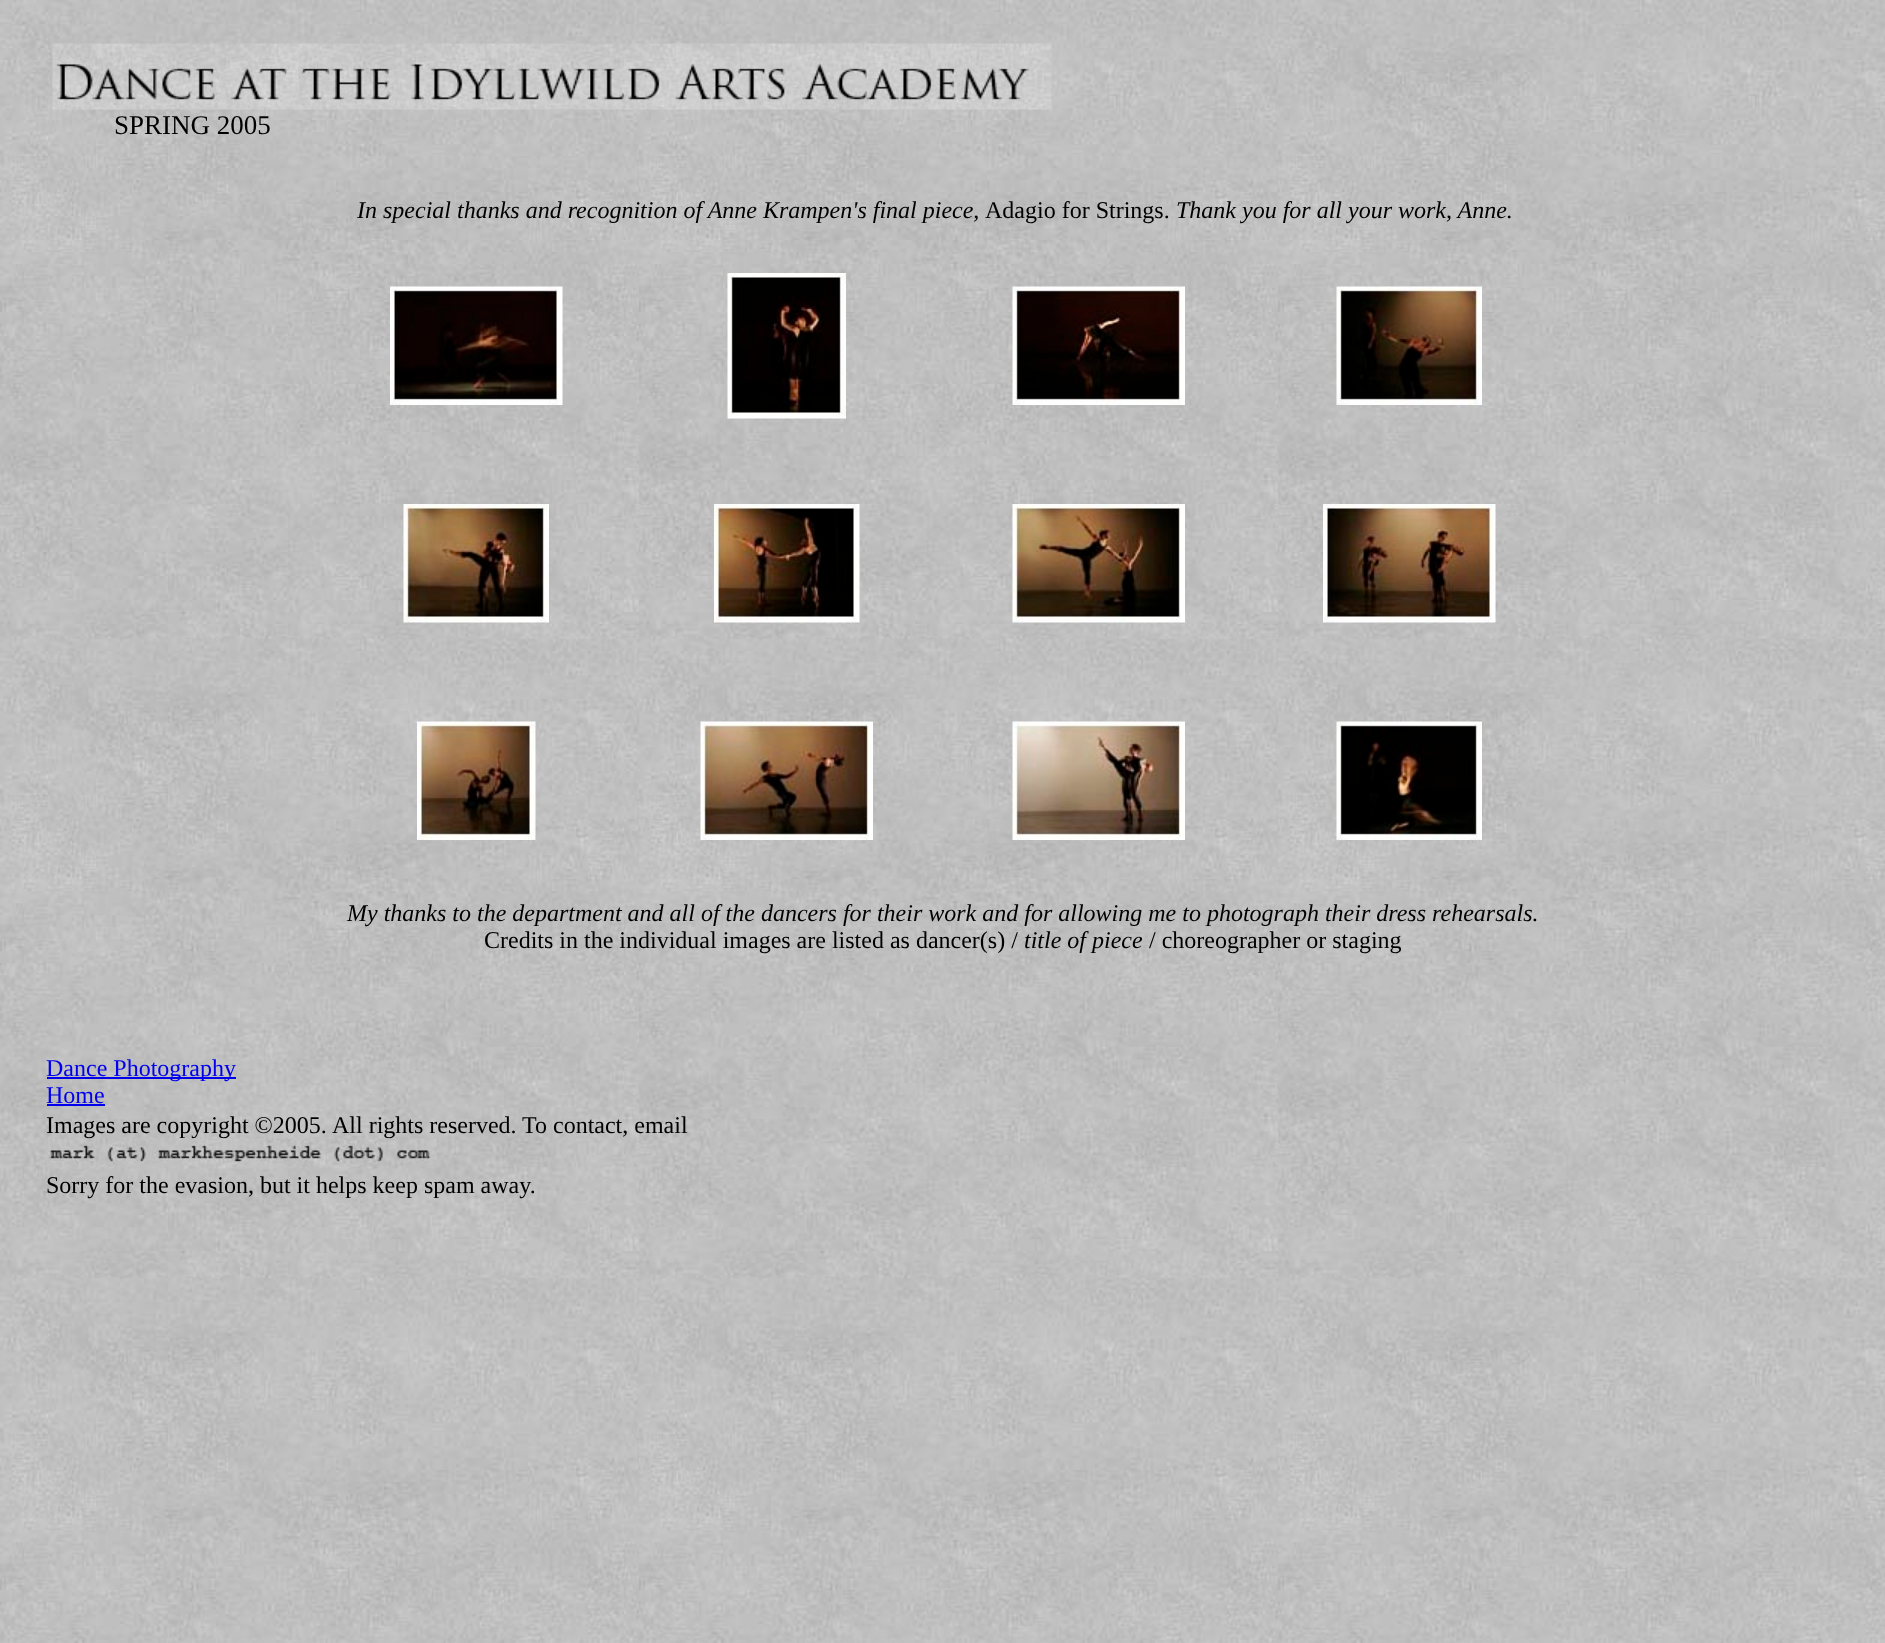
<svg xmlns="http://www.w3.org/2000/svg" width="1885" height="1643">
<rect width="100%" height="100%" fill="#fff"/>
<image x="0" y="0" width="1885" height="1643" href="media/1.png"/>
<image x="52" y="43" width="1000" height="67" href="media/2.png"/>
<text x="114" y="134" style="font-family:Liberation Serif;font-size:27px;fill:#000">SPRING 2005</text>
<text x="357" y="218" style="font-family:Liberation Serif;font-size:24px;font-style:italic;fill:#000">In special thanks and recognition of Anne Krampen's final piece,</text>
<text x="985" y="218" style="font-family:Liberation Serif;font-size:24px;fill:#000">Adagio for Strings.</text>
<text x="1176" y="218" style="font-family:Liberation Serif;font-size:24px;font-style:italic;fill:#000">Thank you for all your work, Anne.</text>
<image x="390" y="286" width="173" height="119" href="media/3.png"/>
<image x="727" y="273" width="119" height="146" href="media/4.png"/>
<image x="1012" y="286" width="173" height="119" href="media/5.png"/>
<image x="1336" y="286" width="146" height="119" href="media/6.png"/>
<image x="403" y="504" width="146" height="119" href="media/7.png"/>
<image x="714" y="504" width="146" height="119" href="media/8.png"/>
<image x="1012" y="504" width="173" height="119" href="media/9.png"/>
<image x="1323" y="504" width="173" height="119" href="media/10.png"/>
<image x="417" y="721" width="119" height="119" href="media/11.png"/>
<image x="700" y="721" width="173" height="119" href="media/12.png"/>
<image x="1012" y="721" width="173" height="119" href="media/13.png"/>
<image x="1336" y="721" width="146" height="119" href="media/14.png"/>
<text x="347" y="921" style="font-family:Liberation Serif;font-size:24px;font-style:italic;fill:#000">My thanks to the department and all of the dancers for their work and for allowing me to photograph their dress rehearsals.</text>
<text x="484" y="948" style="font-family:Liberation Serif;font-size:24px;fill:#000">Credits in the individual images are listed as dancer(s) /</text>
<text x="1024" y="948" style="font-family:Liberation Serif;font-size:24px;font-style:italic;fill:#000">title of piece</text>
<text x="1149" y="948" style="font-family:Liberation Serif;font-size:24px;fill:#000">/ choreographer or staging</text>
<rect x="47" y="1077" width="189" height="2" fill="#00e"/>
<text x="46" y="1076" style="font-family:Liberation Serif;font-size:24px;fill:#00e">Dance Photography</text>
<text x="46" y="1103" style="font-family:Liberation Serif;font-size:24px;fill:#00e">Home</text>
<rect x="47" y="1104" width="58" height="2" fill="#00e"/>
<text x="46" y="1133" style="font-family:Liberation Serif;font-size:24px;fill:#000">Images are copyright ©2005.</text>
<text x="332" y="1133" style="font-family:Liberation Serif;font-size:24px;fill:#000">All rights reserved.</text>
<text x="522" y="1133" style="font-family:Liberation Serif;font-size:24px;fill:#000">To contact, email</text>
<image x="47" y="1138" width="390" height="31" href="media/15.png"/>
<text x="46" y="1193" style="font-family:Liberation Serif;font-size:24px;fill:#000">Sorry for the evasion, but it helps keep spam away.</text>
</svg>
